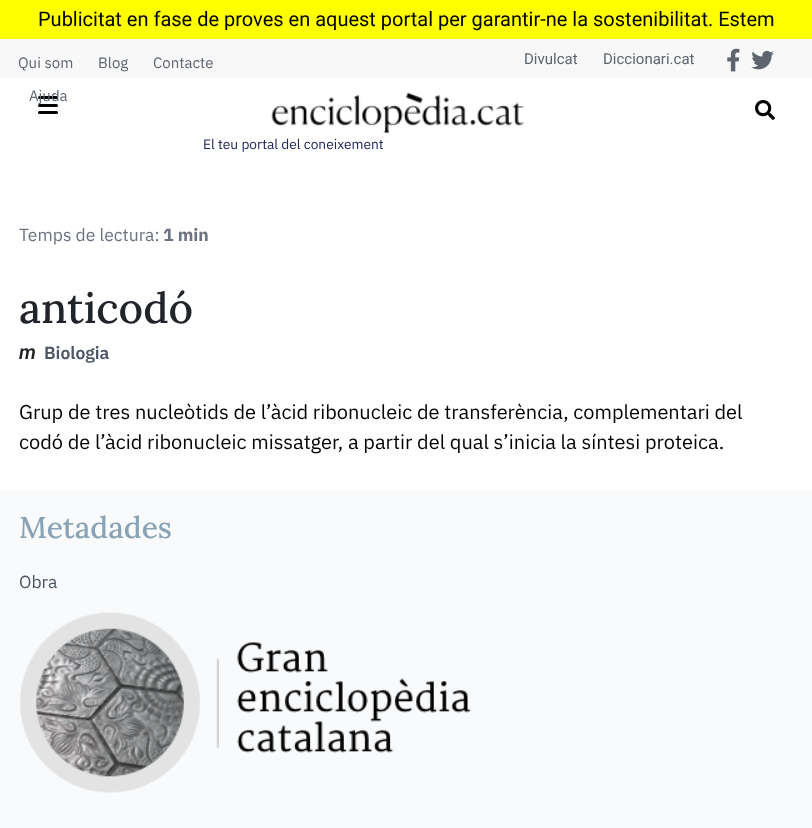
<svg xmlns="http://www.w3.org/2000/svg" width="812" height="828">
<rect width="100%" height="100%" fill="#fff"/>
<rect width="812" height="39" fill="#ff0"/>
<text x="38" y="26" style="font-family:Roboto;font-size:20px;fill:#020303">Publicitat en fase de proves en aquest portal per garantir-ne la sostenibilitat. Estem</text>
<rect y="39" width="812" height="39" fill="#f8f8f8"/>
<text x="18" y="68" style="font-family:IBM Plex Sans;font-size:15px;fill:#5e656e">Qui som</text>
<text x="98" y="68" style="font-family:IBM Plex Sans;font-size:15px;fill:#5e656e">Blog</text>
<text x="153" y="68" style="font-family:IBM Plex Sans;font-size:15px;fill:#5e656e">Contacte</text>
<rect x="38" y="96" width="20" height="3" rx="1.5" fill="#020303"/>
<text x="29" y="101" style="font-family:IBM Plex Sans;font-size:15px;fill:#5e656e">Ajuda</text>
<text x="524" y="64" style="font-family:Roboto;font-size:15px;fill:#5e656e">Divulcat</text>
<text x="603" y="64" style="font-family:Roboto;font-size:15px;fill:#5e656e">Diccionari.cat</text>
<image x="727" y="48" width="13" height="24" href="media/1.png"/>
<image x="751" y="50" width="23" height="20" href="media/2.png"/>
<rect x="38" y="104" width="20" height="3" rx="1.5" fill="#020303"/>
<rect x="38" y="111" width="20" height="3" rx="1.5" fill="#020303"/>
<image x="755" y="100" width="20" height="20" href="media/3.png"/>
<image x="271" y="92" width="253" height="42" href="media/4.png"/>
<text x="203" y="149" style="font-family:IBM Plex Sans;font-size:13.75px;fill:#212559">El teu portal del coneixement</text>
<text x="19" y="241" style="font-family:IBM Plex Sans;font-size:17.5px;fill:#6b7280">Temps de lectura:</text>
<text x="163" y="241" style="font-family:IBM Plex Sans;font-size:17.5px;font-weight:bold;fill:#6b7280">1 min</text>
<text x="19" y="323" style="font-family:Lora;font-size:42.5px;font-weight:500;fill:#212529">anticodó</text>
<text x="19" y="359" style="font-family:Roboto;font-size:20px;font-weight:600;font-style:italic;fill:#212529">m</text>
<text x="44" y="359" style="font-family:IBM Plex Sans;font-size:17.5px;font-weight:600;fill:#4b5563">Biologia</text>
<text x="19" y="419" style="font-family:IBM Plex Sans;font-size:20px;fill:#020303">Grup de tres nucleòtids de l’àcid ribonucleic de transferència, complementari del</text>
<text x="19" y="449" style="font-family:IBM Plex Sans;font-size:20px;fill:#020303">codó de l’àcid ribonucleic missatger, a partir del qual s’inicia la síntesi proteica.</text>
<rect y="490" width="812" height="338" fill="#f9fafb"/>
<text x="19" y="538" style="font-family:Lora;font-size:30px;font-weight:500;fill:#89a3b5">Metadades</text>
<text x="19" y="588" style="font-family:IBM Plex Sans;font-size:17.5px;fill:#4b5563">Obra</text>
<image x="20" y="612" width="451" height="181" href="media/5.png"/>
</svg>
